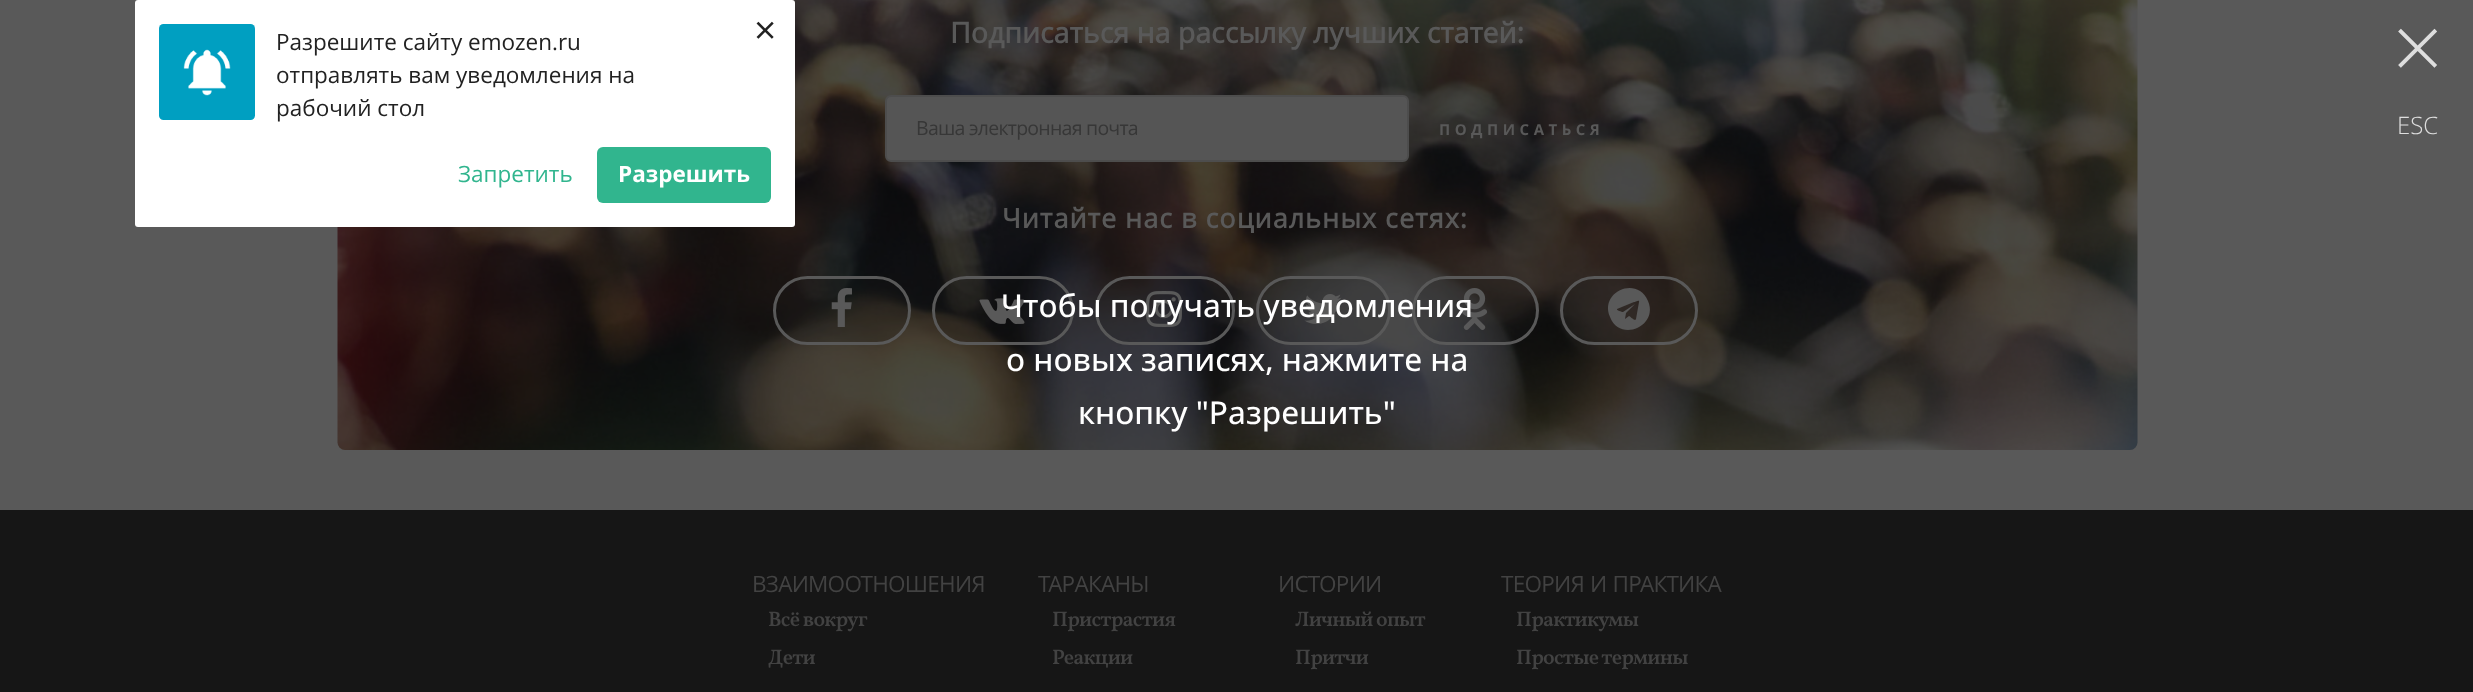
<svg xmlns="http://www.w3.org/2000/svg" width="2473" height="692">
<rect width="100%" height="100%" fill="#595959"/>
<image x="337" y="0" width="1801" height="450" href="media/2.png"/>
<rect x="135" width="660" height="227" rx="3" fill="#fff"/>
<text x="754" y="44" style="font-family:'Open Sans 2';font-size:39px;fill:#222">×</text>
<image x="159" y="24" width="96" height="96" href="media/1.png"/>
<text x="276" y="50" style="font-family:'Open Sans 2';font-size:22.5px;fill:#222">Разрешите сайту emozen.ru</text>
<text x="276" y="83" style="font-family:'Open Sans 2';font-size:22.5px;fill:#222">отправлять вам уведомления на</text>
<text x="276" y="116" style="font-family:'Open Sans 2';font-size:22.5px;fill:#222">рабочий стол</text>
<text x="458" y="182" style="font-family:'Open Sans 2';font-size:22.5px;fill:#31b58e">Запретить</text>
<rect x="597" y="147" width="174" height="56" rx="6" fill="#31b58e"/>
<text x="618" y="182" style="font-family:'Open Sans 2';font-size:22.5px;font-weight:bold;fill:#fff">Разрешить</text>
<text x="950" y="43" style="font-family:Open Sans;font-size:28.5px;font-weight:bold;fill:#595959">Подписаться на рассылку лучших статей:</text>
<rect x="886" y="96" width="522" height="65" rx="5" fill="#555" stroke="#4d4d4d" stroke-width="2"/>
<text x="916" y="135" style="font-family:Open Sans;font-size:19.5px;letter-spacing:-0.75px;fill:#373737">Ваша электронная почта</text>
<text x="1439" y="135" style="font-family:'Open Sans 2';font-size:15px;font-weight:bold;letter-spacing:4.5px;fill:#595959">ПОДПИСАТЬСЯ</text>
<text x="1002" y="228" style="font-family:Open Sans;font-size:27px;font-weight:bold;letter-spacing:1px;fill:#595959">Читайте нас в социальных сетях:</text>
<rect x="774.5" y="277.5" width="135" height="66" rx="33" fill="#18181833" stroke="#595959" stroke-width="3"/>
<image x="831" y="288" width="21" height="39" href="media/3.png"/>
<rect x="933.5" y="277.5" width="139" height="66" rx="33" fill="#18181833" stroke="#595959" stroke-width="3"/>
<image x="979" y="298" width="46" height="26" href="media/4.png"/>
<rect x="1096.5" y="277.5" width="137" height="66" rx="33" fill="#18181833" stroke="#595959" stroke-width="3"/>
<image x="1146" y="291" width="36" height="36" href="media/5.png"/>
<rect x="1257.5" y="277.5" width="132" height="66" rx="33" fill="#18181833" stroke="#595959" stroke-width="3"/>
<image x="1304" y="294" width="38" height="30" href="media/6.png"/>
<rect x="1413.5" y="277.5" width="124" height="66" rx="33" fill="#18181833" stroke="#595959" stroke-width="3"/>
<image x="1461" y="288" width="27" height="42" href="media/7.png"/>
<rect x="1561.5" y="277.5" width="135" height="66" rx="33" fill="#18181833" stroke="#595959" stroke-width="3"/>
<path d="M1636 319l3-17c1-3-4 0-5 0l-17 7c-1 1 5 3 6 3l12-8c0 0 1 0 0 0l-9 9l-1 6l4-3c1 0 6 6 7 3zm12-18c11 25-28 42-38 16c-11-25 27-42 38-16z" fill="#595959"/>
<rect y="510" width="2473" height="182" fill="#161616"/>
<text x="752" y="592" style="font-family:Open Sans;font-size:22.5px;letter-spacing:-0.75px;fill:#424242">ВЗАИМООТНОШЕНИЯ</text>
<text x="768" y="626" style="font-family:Vollkorn;font-size:21px;font-weight:600;letter-spacing:-0.75px;fill:#424242">Всё вокруг</text>
<text x="768" y="664" style="font-family:Vollkorn;font-size:21px;font-weight:600;letter-spacing:-0.75px;fill:#424242">Дети</text>
<text x="1038" y="592" style="font-family:Open Sans;font-size:22.5px;letter-spacing:-0.75px;fill:#424242">ТАРAКАНЫ</text>
<text x="1052" y="626" style="font-family:Vollkorn;font-size:21px;font-weight:600;letter-spacing:-0.75px;fill:#424242">Пристрастия</text>
<text x="1052" y="664" style="font-family:Vollkorn;font-size:21px;font-weight:600;letter-spacing:-0.75px;fill:#424242">Реакции</text>
<text x="1278" y="592" style="font-family:Open Sans;font-size:22.5px;letter-spacing:-0.75px;fill:#424242">ИСТОРИИ</text>
<text x="1295" y="626" style="font-family:Vollkorn;font-size:21px;font-weight:600;letter-spacing:-0.75px;fill:#424242">Личный опыт</text>
<text x="1295" y="664" style="font-family:Vollkorn;font-size:21px;font-weight:600;letter-spacing:-0.75px;fill:#424242">Притчи</text>
<text x="1501" y="592" word-spacing="1" style="font-family:Open Sans;font-size:22.5px;letter-spacing:-0.75px;fill:#424242">ТЕОРИЯ И ПРАКТИКА</text>
<text x="1516" y="626" style="font-family:Vollkorn;font-size:21px;font-weight:600;letter-spacing:-0.75px;fill:#424242">Практикумы</text>
<text x="1516" y="664" style="font-family:Vollkorn;font-size:21px;font-weight:600;letter-spacing:-0.75px;fill:#424242">Простые термины</text>
<text x="2392" y="80" style="font-family:Open Sans;font-size:90px;font-weight:300;fill:#dedede">×</text>
<text x="2397" y="134" style="font-family:Open Sans;font-size:24px;font-weight:300;fill:#dedede">ESC</text>
<text x="1001" y="317" style="font-family:Open Sans;font-size:31.5px;font-weight:500;fill:#fff">Чтобы получать уведомления</text>
<text x="1006" y="371" style="font-family:Open Sans;font-size:31.5px;font-weight:500;fill:#fff">о новых записях, нажмите на</text>
<text x="1078" y="424" style="font-family:Open Sans;font-size:31.5px;font-weight:500;fill:#fff">кнопку "Разрешить"</text>
</svg>
